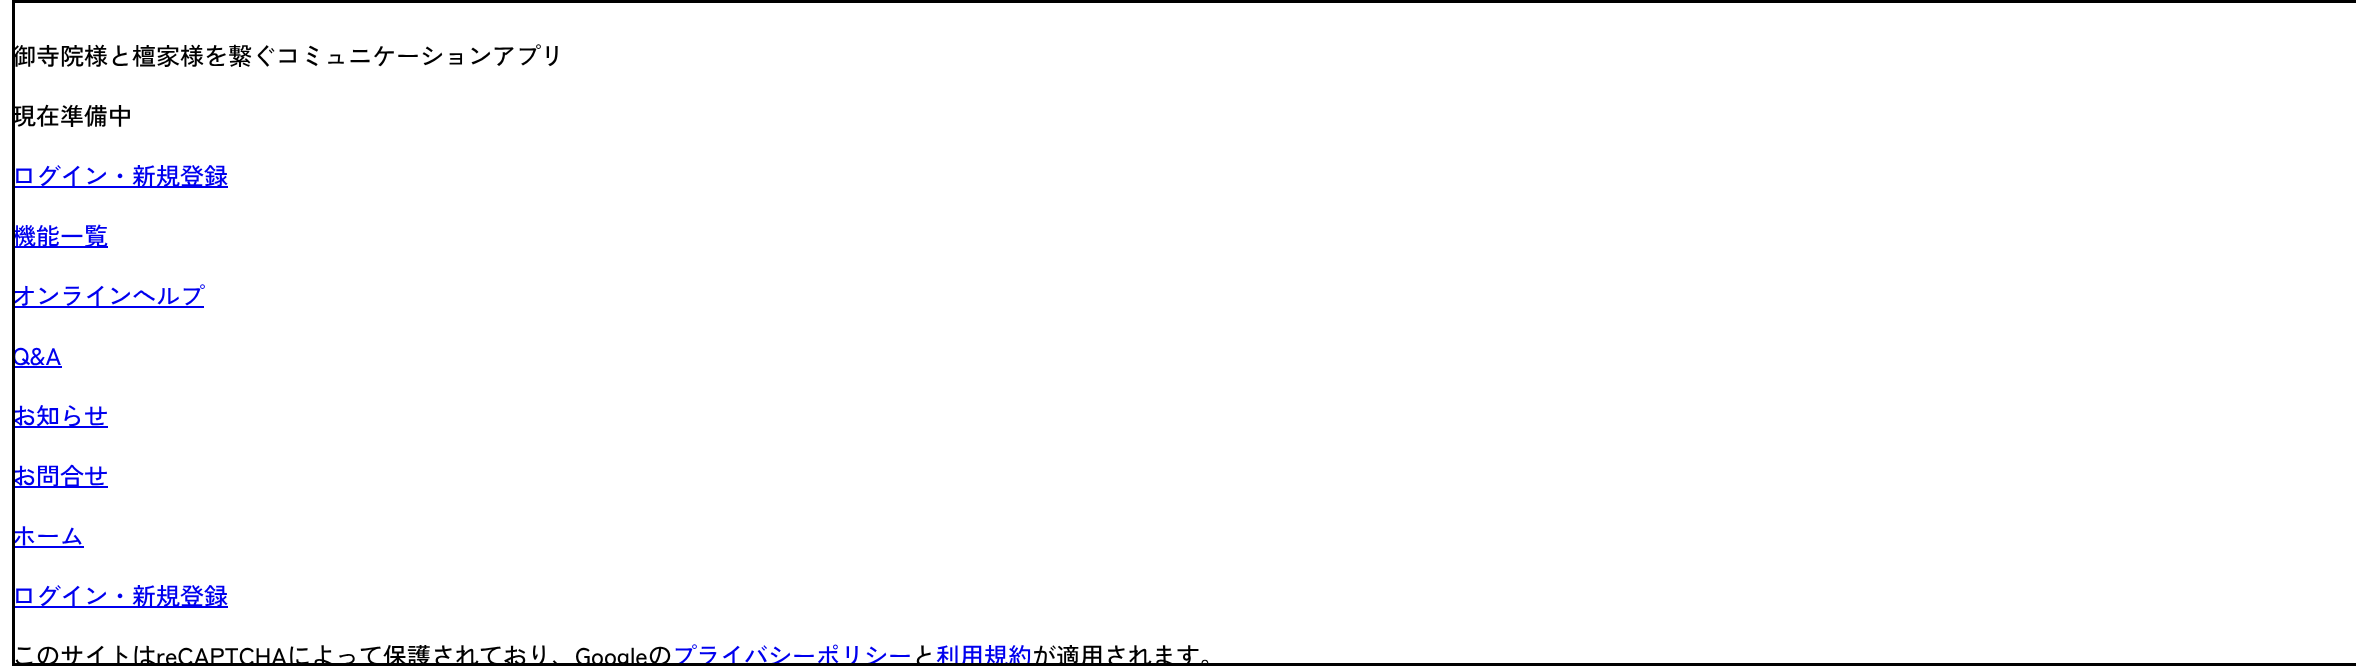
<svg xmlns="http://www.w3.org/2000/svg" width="2356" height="666">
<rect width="100%" height="100%" fill="#fff"/>
<rect x="12" y="186" width="216" height="2" fill="#00e"/>
<rect x="12" y="246" width="96" height="2" fill="#00e"/>
<text x="12" y="245" style="font-family:Zen Kaku Gothic Antique;font-size:24px;font-weight:500;fill:#00e">機能一覧</text>
<rect x="12" y="306" width="192" height="2" fill="#00e"/>
<text x="12" y="305" style="font-family:Zen Kaku Gothic Antique;font-size:24px;font-weight:500;fill:#00e">オンラインヘルプ</text>
<text x="12" y="365" style="font-family:Zen Kaku Gothic Antique;font-size:24px;font-weight:500;fill:#00e">Q&amp;A</text>
<rect x="12" y="366" width="50" height="2" fill="#00e"/>
<rect x="12" y="426" width="96" height="2" fill="#00e"/>
<text x="12" y="425" style="font-family:Zen Kaku Gothic Antique;font-size:24px;font-weight:500;fill:#00e">お知らせ</text>
<rect x="12" y="486" width="96" height="2" fill="#00e"/>
<text x="12" y="485" style="font-family:Zen Kaku Gothic Antique;font-size:24px;font-weight:500;fill:#00e">お問合せ</text>
<text x="12" y="545" style="font-family:Zen Kaku Gothic Antique;font-size:24px;font-weight:500;fill:#00e">ホーム</text>
<rect x="12" y="546" width="72" height="2" fill="#00e"/>
<rect x="12" y="606" width="216" height="2" fill="#00e"/>
<text x="672" y="665" style="font-family:Zen Kaku Gothic Antique;font-size:24px;font-weight:500;fill:#00e">プライバシーポリシー</text>
<text x="936" y="665" style="font-family:Zen Kaku Gothic Antique;font-size:24px;font-weight:500;fill:#00e">利用規約</text>
<rect x="13.5" y="1.5" width="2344" height="663" fill="none" stroke="#000" stroke-width="3"/>
<text x="12" y="65" style="font-family:Zen Kaku Gothic Antique;font-size:24px;font-weight:500;fill:#000">御寺院様と檀家様を繋ぐコミュニケーションアプリ</text>
<text x="12" y="125" style="font-family:Zen Kaku Gothic Antique;font-size:24px;font-weight:500;fill:#000">現在準備中</text>
<text x="12" y="185" style="font-family:Zen Kaku Gothic Antique;font-size:24px;font-weight:500;fill:#00e">ログイン・新規登録</text>
<text x="12" y="605" style="font-family:Zen Kaku Gothic Antique;font-size:24px;font-weight:500;fill:#00e">ログイン・新規登録</text>
<text x="12" y="665" style="font-family:Zen Kaku Gothic Antique;font-size:24px;font-weight:500;fill:#000">このサイトはreCAPTCHAによって保護されており、Googleの</text>
<text x="912" y="665" style="font-family:Zen Kaku Gothic Antique;font-size:24px;font-weight:500;fill:#000">と</text>
<text x="1032" y="665" style="font-family:Zen Kaku Gothic Antique;font-size:24px;font-weight:500;fill:#000">が適用されます。</text>
</svg>
